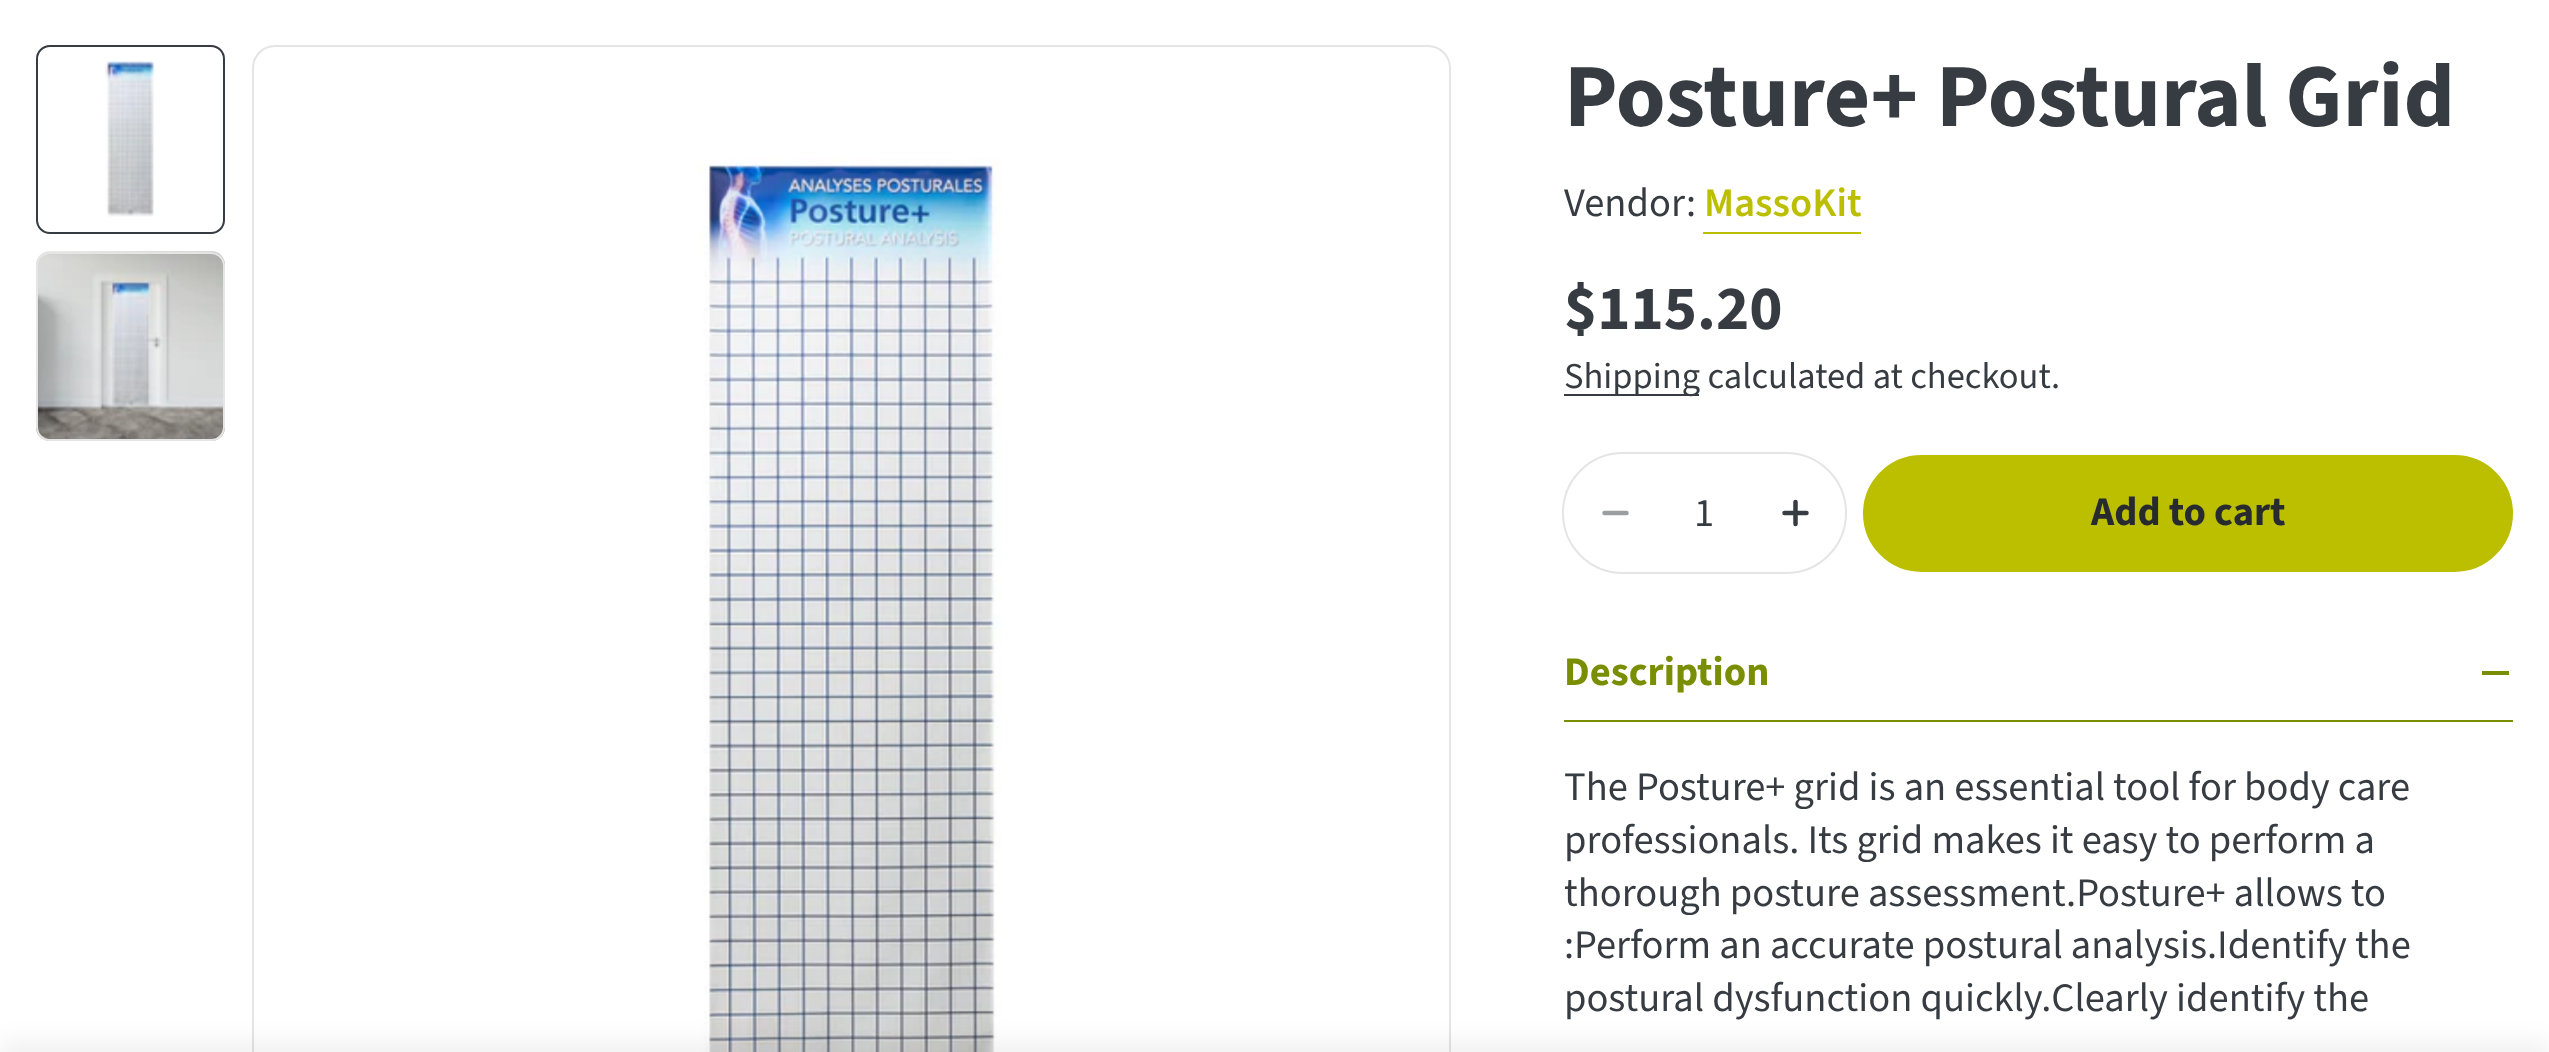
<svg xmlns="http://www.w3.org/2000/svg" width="2549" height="1052">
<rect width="100%" height="100%" fill="#fff"/>
<image x="105" y="60" width="51" height="157" href="media/1.png"/>
<rect x="37" y="46" width="187" height="187" rx="13" fill="none" stroke="#373c42" stroke-width="2"/>
<image x="36" y="251" width="189" height="190" href="media/2.png"/>
<rect x="37" y="253" width="187" height="187" rx="13" fill="none" stroke="#e5e5e5" stroke-width="2"/>
<image x="697" y="158" width="305" height="894" href="media/3.png"/>
<rect x="253" y="46" width="1197" height="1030" rx="22" fill="none" stroke="#e5e5e5" stroke-width="2"/>
<text x="1564" y="126" style="font-family:Source Sans Pro;font-size:90px;font-weight:bold;fill:#373c42">Posture+ Postural Grid</text>
<text x="1564" y="216" style="font-family:Source Sans Pro;font-size:40.5px;fill:#373c42">Vendor:</text>
<text x="1704" y="216" style="font-family:Source Sans Pro;font-size:40.5px;font-weight:600;fill:#bcbe00">MassoKit</text>
<rect x="1703" y="232" width="158" height="2" fill="#bcbe00"/>
<text x="1564" y="329" style="font-family:Source Sans Pro;font-size:63px;font-weight:bold;fill:#373c42">$115.20</text>
<rect x="1564" y="394" width="135" height="2" fill="#373c42"/>
<text x="1564" y="388" style="font-family:Source Sans Pro;font-size:36.5px;fill:#373c42">Shipping calculated at checkout.</text>
<rect x="1563" y="453" width="283" height="120" rx="60" fill="none" stroke="#e5e5e5" stroke-width="2"/>
<path d="M1604.5 513h22" fill="none" stroke="#9b9ea1" stroke-width="4.5" stroke-linecap="round" stroke-linejoin="round"/>
<text x="1694" y="526" style="font-family:Source Sans Pro;font-size:40.5px;fill:#373c42">1</text>
<path d="M1784.5 513h22m-11-11v22" fill="none" stroke="#373c42" stroke-width="4.5" stroke-linecap="round" stroke-linejoin="round"/>
<rect x="1864" y="456" width="648" height="115" rx="57.5" fill="#bcbe00" stroke="#bcbe00" stroke-width="2"/>
<text x="2091" y="525" style="font-family:Source Sans Pro;font-size:40.5px;font-weight:bold;fill:#272b30">Add to cart</text>
<rect x="1564" y="720" width="949" height="2" fill="#798e01"/>
<text x="1564" y="685" style="font-family:Source Sans Pro;font-size:40.5px;font-weight:bold;fill:#798e01">Description</text>
<rect x="2482" y="671" width="27" height="4" fill="#798e01"/>
<text x="1564" y="800" style="font-family:Source Sans Pro;font-size:40.5px;fill:#373c42">The Posture+ grid is an essential tool for body care</text>
<text x="1564" y="853" style="font-family:Source Sans Pro;font-size:40.5px;fill:#373c42">professionals. Its grid makes it easy to perform a</text>
<text x="1564" y="906" style="font-family:Source Sans Pro;font-size:40.5px;fill:#373c42">thorough posture assessment.Posture+ allows to</text>
<text x="1564" y="958" style="font-family:Source Sans Pro;font-size:40.5px;fill:#373c42">:Perform an accurate postural analysis.Identify the</text>
<text x="1564" y="1011" style="font-family:Source Sans Pro;font-size:40.5px;fill:#373c42">postural dysfunction quickly.Clearly identify the</text>
<rect y="1040" width="2549" height="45" fill="#0000000d" filter="blur(11px)"/>
</svg>
